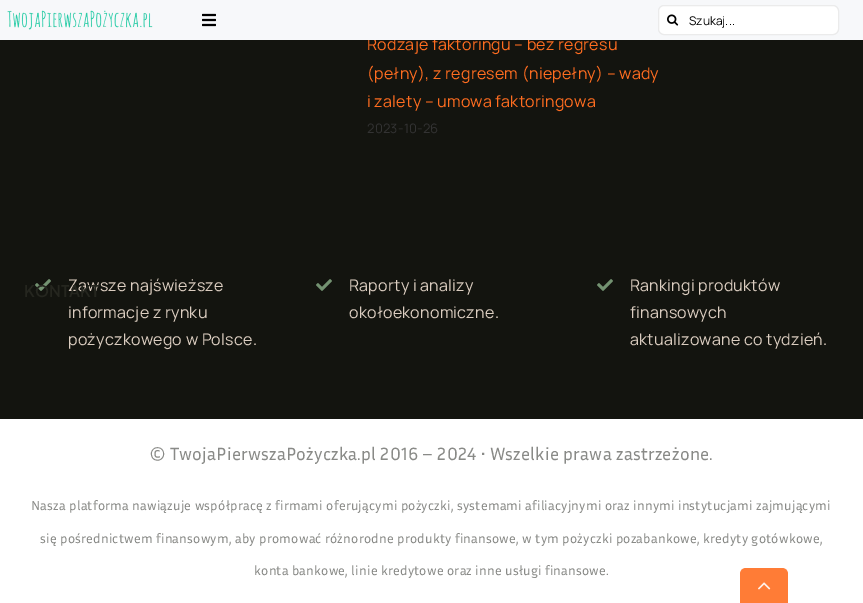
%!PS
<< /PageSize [863 603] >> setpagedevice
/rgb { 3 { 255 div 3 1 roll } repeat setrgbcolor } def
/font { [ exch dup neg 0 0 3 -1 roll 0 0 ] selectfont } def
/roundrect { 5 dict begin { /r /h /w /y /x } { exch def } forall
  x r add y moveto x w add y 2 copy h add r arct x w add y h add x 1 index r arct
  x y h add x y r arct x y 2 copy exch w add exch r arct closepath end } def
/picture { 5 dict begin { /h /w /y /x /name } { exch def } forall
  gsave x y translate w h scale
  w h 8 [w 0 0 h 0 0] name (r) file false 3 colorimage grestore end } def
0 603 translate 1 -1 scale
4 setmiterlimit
255 255 255 rgb
0 0 863 603 rectfill
19 20 15 rgb
0 40 863 379 rectfill
(img/4.rgb) 35 279 16 12 picture
(img/4.rgb) 316 279 16 12 picture
(img/4.rgb) 597 279 16 12 picture
255 124 54 rgb
746 568 moveto 782 568 lineto 785.5 568 788 570.5 788 574 curveto 788 603 lineto 740 603 lineto 740 574 lineto 740 570.5 742.5 568 746 568 curveto closepath fill
(img/5.rgb) 758 582 13 8 picture
/Manrope-Regular 16 font
255 109 32 rgb
367 50 moveto 0.25 0 (Rodzaje faktoringu – bez regresu) ashow
247 248 250 rgb
0 0 863 40 rectfill
(img/1.rgb) 7 10 146 20 picture
255 255 255 rgb
658.5 5.5 180 29 5.5 roundrect gsave fill grestore
235 235 235 rgb
stroke
(img/2.rgb) 667 14 12 12 picture
/Manrope-Regular 12 font
0 0 0 rgb
689 25 moveto (Szukaj...) show
(img/3.rgb) 202 13 14 14 picture
/Manrope-Regular 16 font
255 109 32 rgb
367 79 moveto 0.25 0 (\(pełny\), z regresem \(niepełny\) – wady) ashow
367 107 moveto 0.25 0 (i zalety – umowa faktoringowa) ashow
/Manrope-Regular 13 font
51 51 51 rgb
367 133 moveto 0.25 0 (2023-10-26) ashow
/Manrope-Regular 16 font
219 205 192 rgb
68 291 moveto 0.25 0 (Zawsze najświeższe) ashow
/PlusJakartaSans-SemiBold 16 font
37 38 31 rgb
24 297 moveto (KONTAKT) show
/Manrope-Regular 16 font
219 205 192 rgb
68 318 moveto 0.25 0 (informacje z rynku) ashow
68 345 moveto 0.25 0 (pożyczkowego w Polsce.) ashow
349 291 moveto 0.25 0 (Raporty i analizy) ashow
349 318 moveto 0.25 0 (okołoekonomiczne.) ashow
630 291 moveto 0.25 0 (Rankingi produktów) ashow
630 318 moveto 0.25 0 (finansowych) ashow
630 345 moveto 0.25 0 (aktualizowane co tydzień.) ashow
/InriaSans-Regular 18 font
137 138 135 rgb
150 460 moveto 0.27 0 (© TwojaPierwszaPożyczka.pl 2016 – 2024 • Wszelkie prawa zastrzeżone.) ashow
/InriaSans-Regular 13.33 font
31 510 moveto 0.27 0 (Nasza platforma nawiązuje współpracę z firmami oferującymi pożyczki, systemami afiliacyjnymi oraz innymi instytucjami zajmującymi) ashow
40 543 moveto 0.27 0 (się pośrednictwem finansowym, aby promować różnorodne produkty finansowe, w tym pożyczki pozabankowe, kredyty gotówkowe,) ashow
254 575 moveto 0.27 0 (konta bankowe, linie kredytowe oraz inne usługi finansowe.) ashow
showpage
